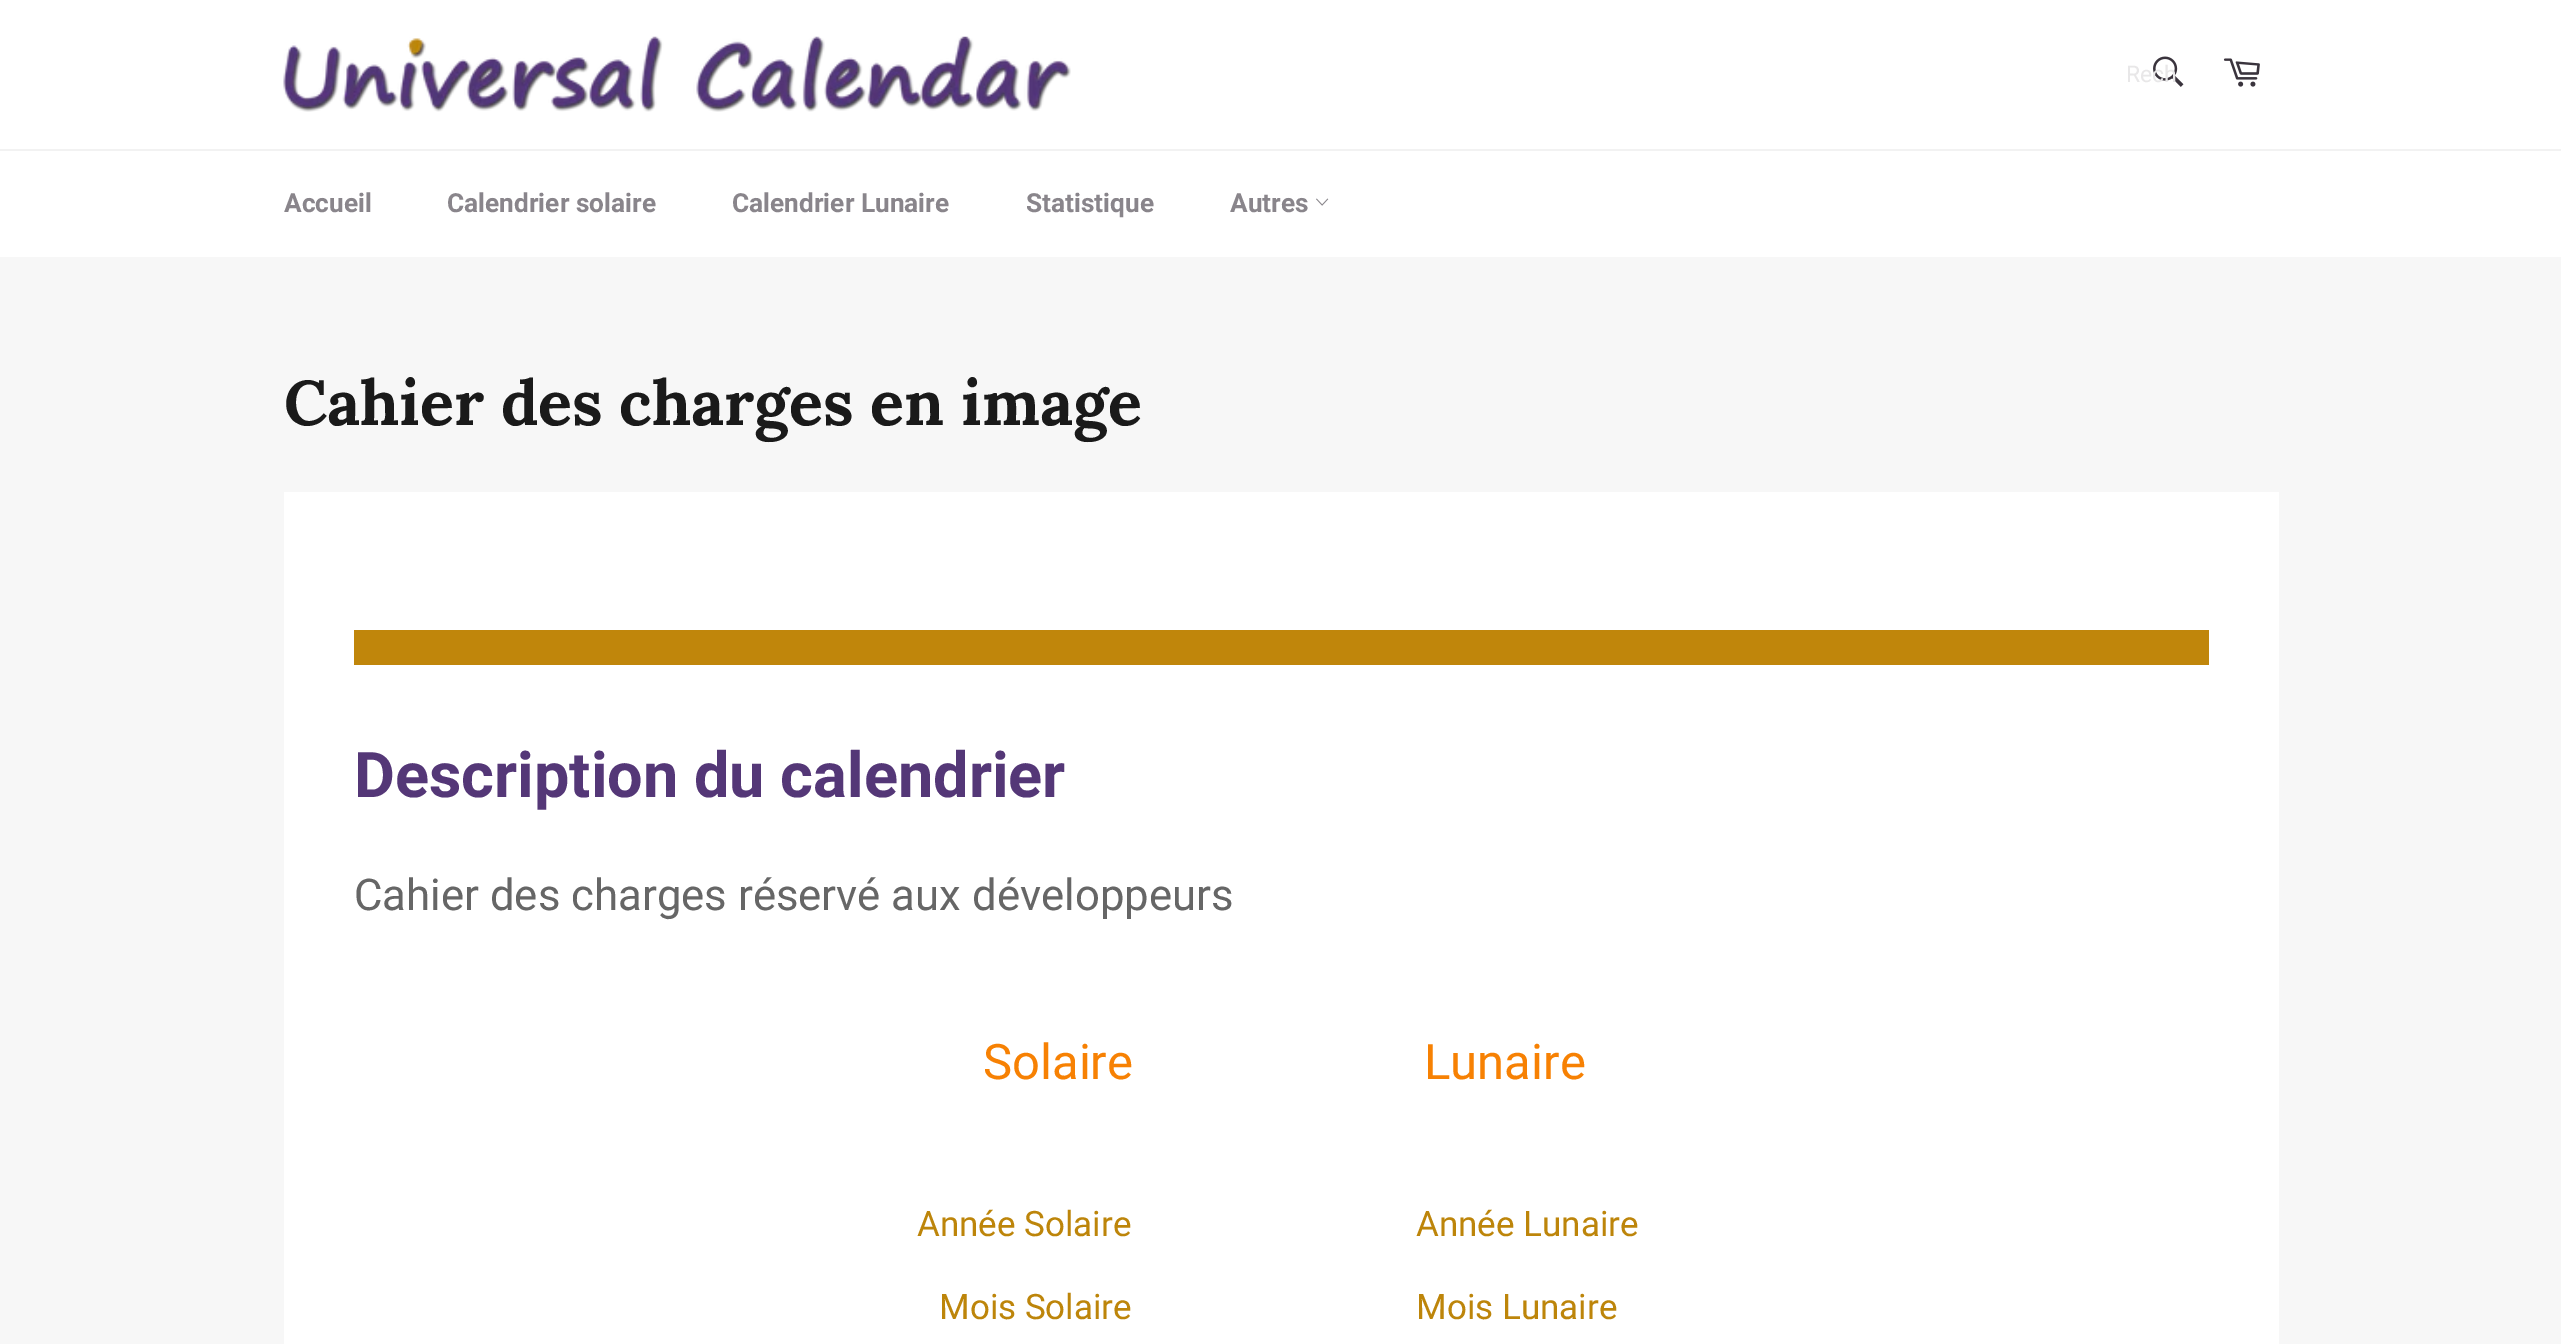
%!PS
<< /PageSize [2561 1344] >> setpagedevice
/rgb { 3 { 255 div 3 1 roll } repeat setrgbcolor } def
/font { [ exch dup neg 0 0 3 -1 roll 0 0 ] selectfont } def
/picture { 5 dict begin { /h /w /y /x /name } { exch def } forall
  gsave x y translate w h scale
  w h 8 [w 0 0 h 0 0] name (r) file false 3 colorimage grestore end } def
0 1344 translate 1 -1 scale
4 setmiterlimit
247 247 247 rgb
0 0 2561 1344 rectfill
255 255 255 rgb
0 0 2561 149 rectfill
(img/1.rgb) 283 36 788 76 picture
(img/2.rgb) 2153 56 31 31 picture
(img/3.rgb) 2223 58 37 29 picture
0 151 2561 106 rectfill
242 242 242 rgb
0 149 2561 2 rectfill
(img/4.rgb) 1316 198 13 8 picture
255 255 255 rgb
284 492 1995 852 rectfill
192 134 11 rgb
354 630 1855 35 rectfill
/Roboto-Regular 23 font
232 231 232 rgb
2126 82 moveto (Rech) show
/Roboto-Bold 26.25 font
137 133 139 rgb
[
  [(Accueil) 284 212]
  [(Calendrier solaire) 447 212]
  [(Calendrier Lunaire) 732 212]
  [(Statistique) 1026 212]
  [(Autres) 1230 212]
] { aload pop moveto show } forall
/Lora-Bold 63 font
26 26 26 rgb
284 425 moveto (Cahier des charges en image) show
/Roboto-Bold 63 font
84 55 119 rgb
354 797 moveto (Description du calendrier) show
/Roboto-Regular 43.75 font
102 102 102 rgb
354 910 moveto (Cahier des charges réservé aux développeurs) show
/Roboto-Regular 49 font
247 129 3 rgb
983 1079 moveto (Solaire) show
1424 1079 moveto (Lunaire) show
/Roboto-Regular 35 font
189 133 10 rgb
[
  [(Année Solaire) 917 1236]
  [(Année Lunaire) 1416 1236]
  [(Mois Solaire) 939 1319]
  [(Mois Lunaire) 1416 1319]
] { aload pop moveto show } forall
showpage
